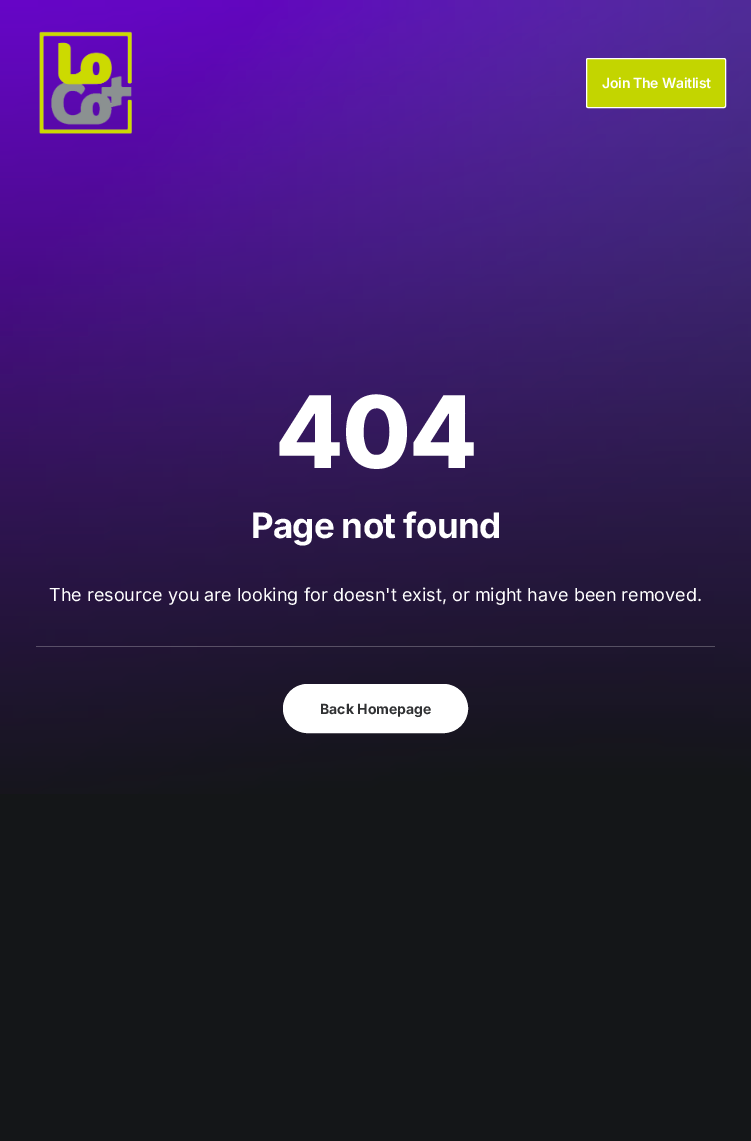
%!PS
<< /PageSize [751 1141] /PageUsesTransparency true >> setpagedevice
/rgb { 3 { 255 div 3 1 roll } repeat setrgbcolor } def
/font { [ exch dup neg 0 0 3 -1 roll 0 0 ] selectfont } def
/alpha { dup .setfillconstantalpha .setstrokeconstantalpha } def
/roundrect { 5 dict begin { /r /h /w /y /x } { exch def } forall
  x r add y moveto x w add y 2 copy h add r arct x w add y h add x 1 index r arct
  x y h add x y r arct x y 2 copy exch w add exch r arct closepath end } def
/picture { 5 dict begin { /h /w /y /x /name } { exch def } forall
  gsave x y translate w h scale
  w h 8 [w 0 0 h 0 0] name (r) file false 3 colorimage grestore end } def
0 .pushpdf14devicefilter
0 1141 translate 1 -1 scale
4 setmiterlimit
20 22 24 rgb
0 0 751 1141 rectfill
(img/2.rgb) 0 0 751 794 picture
(img/1.rgb) 39 31 93 103 picture
195 213 0 rgb
586.5 58.5 139 49 1.5 roundrect gsave fill grestore
255 255 255 rgb
stroke
0.25 alpha
36 646 679 1 rectfill
1 alpha
283.5 684.5 184 48 24 roundrect gsave fill grestore
stroke
/Inter-SemiBold 14 font
602 88 moveto -0.25 0 (Join The Waitlist) ashow
/Inter-ExtraBold 100 font
275 468 moveto -2 0 (404) ashow
/Inter-Bold 35 font
251 538 moveto -0.75 0 (Page not found) ashow
/Inter-Regular 18 font
49 601 moveto (The resource you are looking for doesn't exist, or might have been removed.) show
/Inter-Bold 14 font
48 49 51 rgb
320 714 moveto (Back Homepage) show
.poppdf14devicefilter showpage
